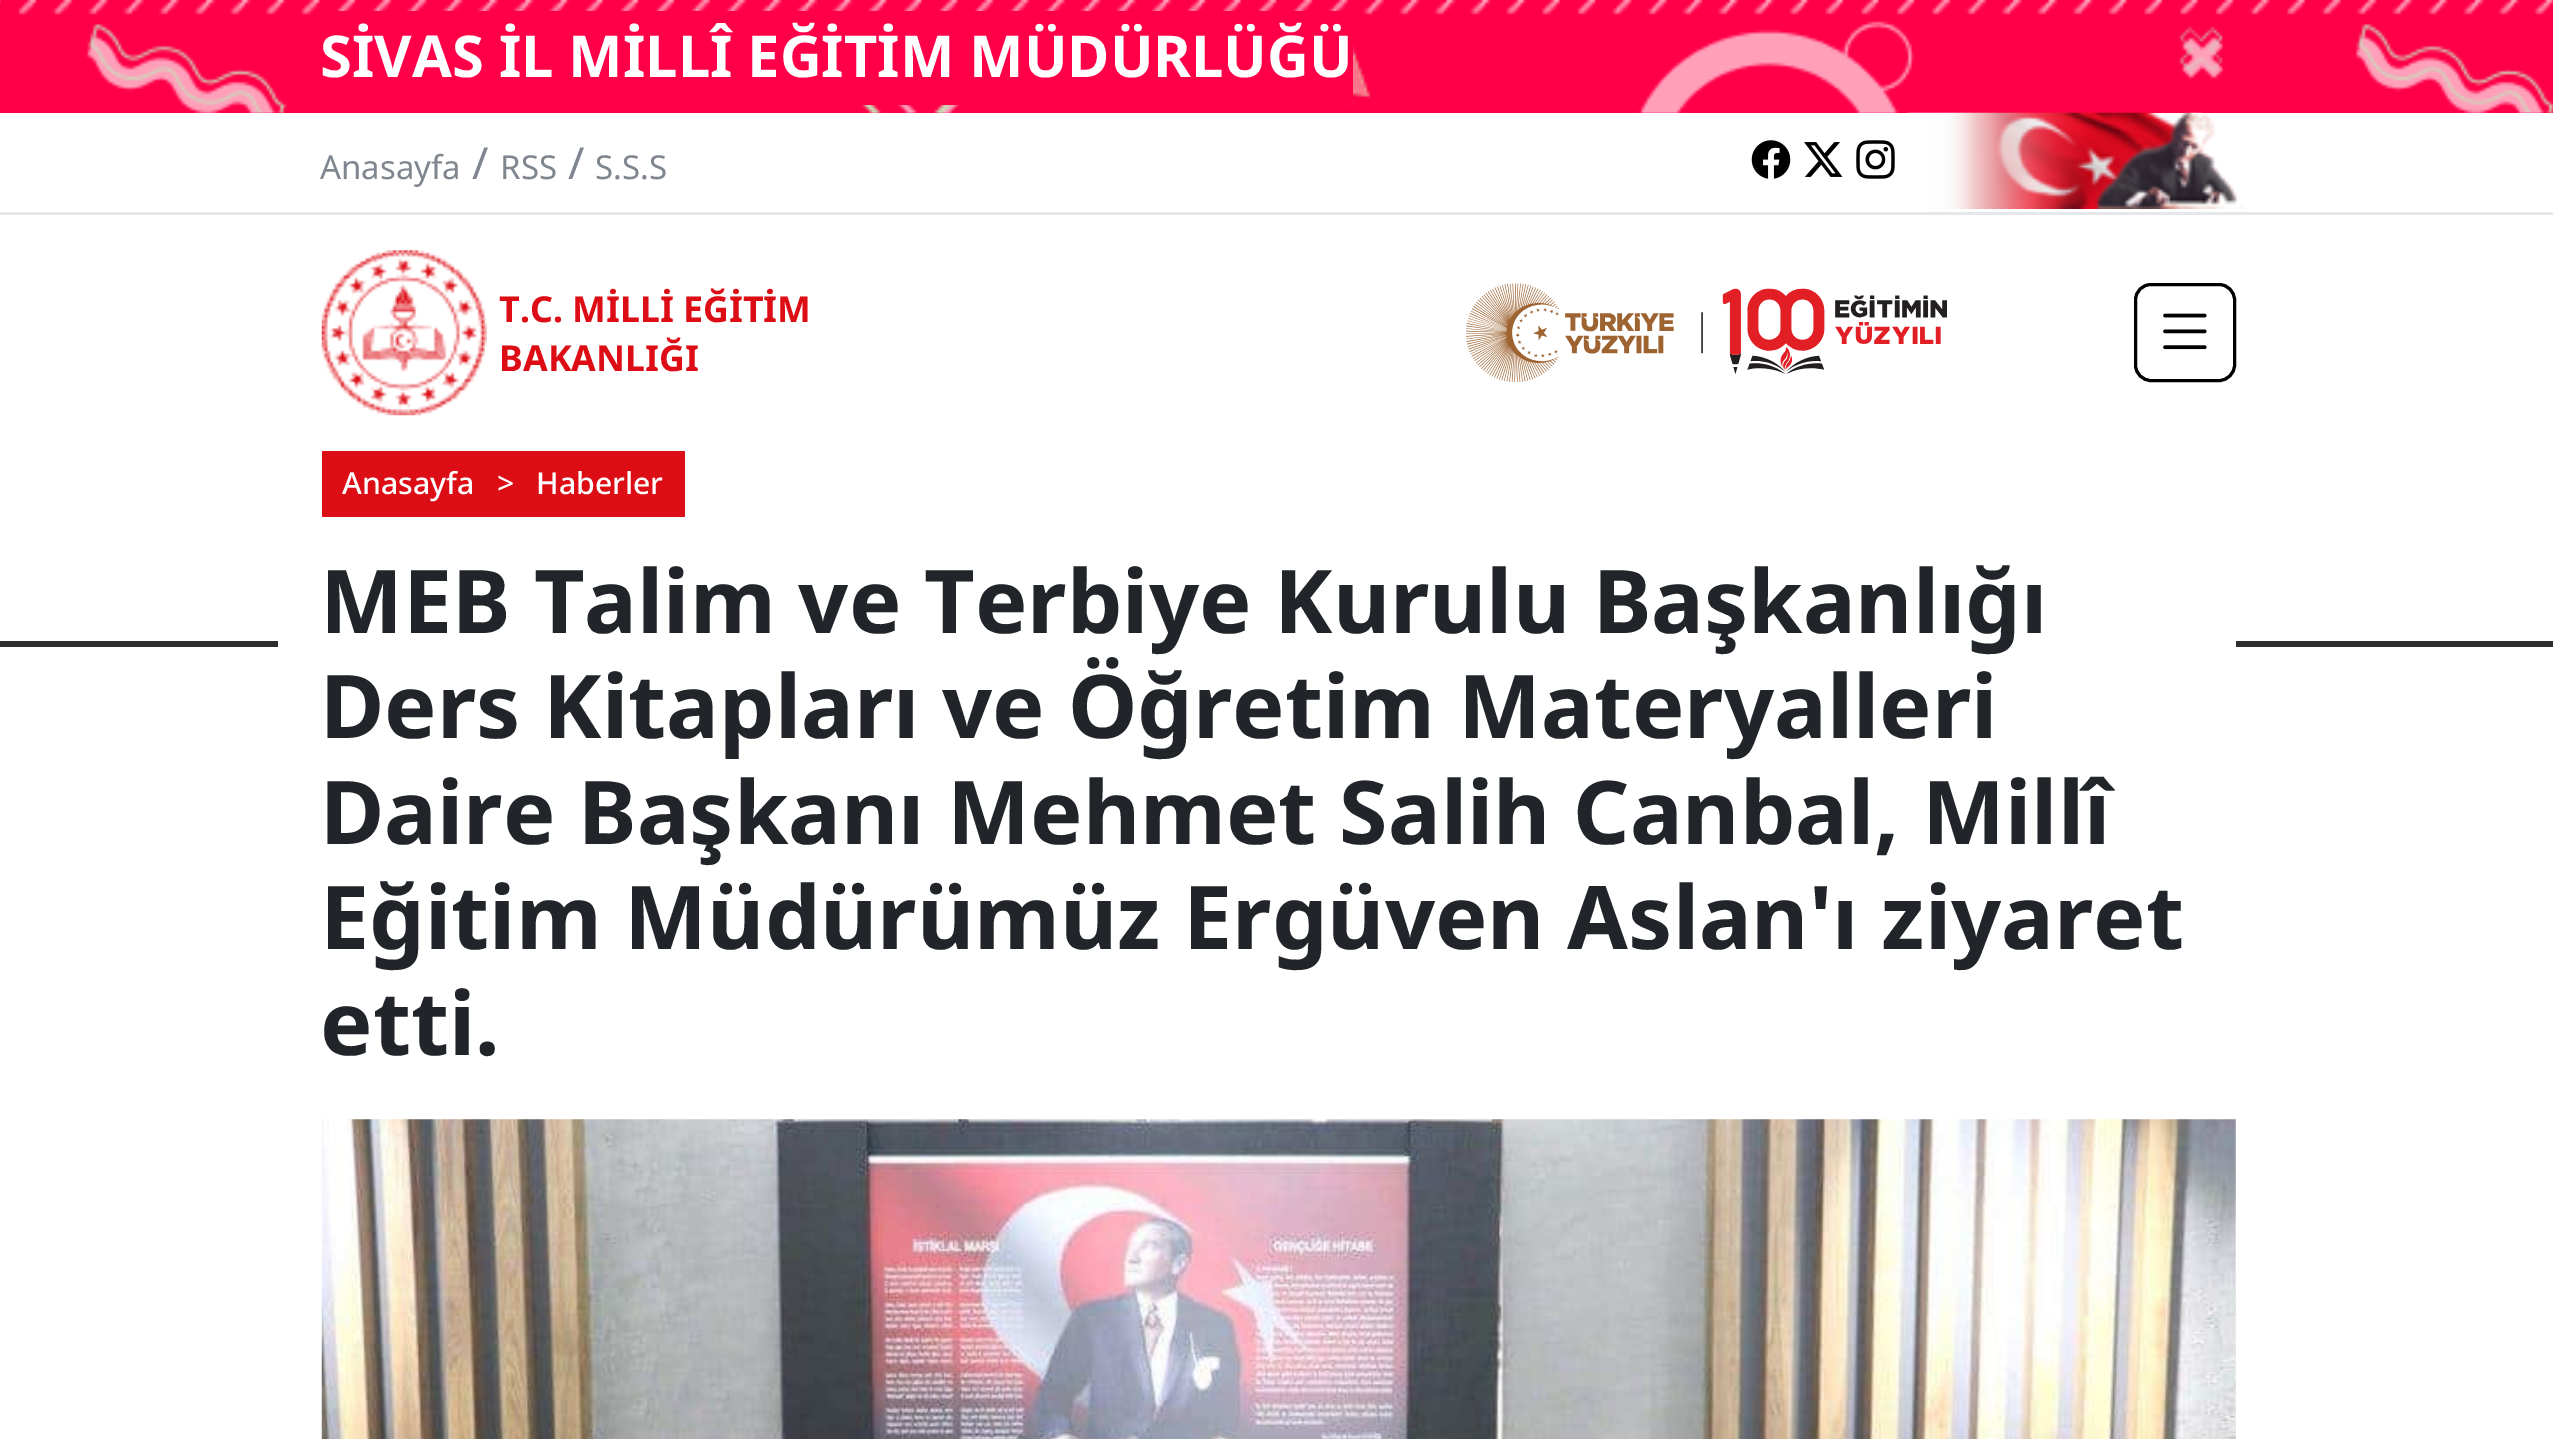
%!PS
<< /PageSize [2553 1439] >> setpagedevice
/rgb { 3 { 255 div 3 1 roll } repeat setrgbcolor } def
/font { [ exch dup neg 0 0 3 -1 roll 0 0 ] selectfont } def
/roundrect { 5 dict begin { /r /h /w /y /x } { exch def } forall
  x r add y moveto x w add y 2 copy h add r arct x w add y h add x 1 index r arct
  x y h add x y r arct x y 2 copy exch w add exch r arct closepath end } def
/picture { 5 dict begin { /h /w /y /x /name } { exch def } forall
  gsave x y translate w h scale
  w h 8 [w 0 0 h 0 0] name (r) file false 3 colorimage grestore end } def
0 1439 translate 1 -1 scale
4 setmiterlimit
255 255 255 rgb
0 0 2553 1439 rectfill
255 0 72 rgb
0 0 2553 113 rectfill
(img/1.rgb) 0 0 2553 113 picture
337 11 1016 94 rectfill
229 231 235 rgb
0 212 2553 3 rectfill
(img/2.rgb) 1751 140 40 39 picture
(img/3.rgb) 1804 142 39 35 picture
(img/4.rgb) 1856 140 39 39 picture
(img/5.rgb) 1908 112 336 97 picture
(img/6.rgb) 321 250 166 166 picture
(img/7.rgb) 1466 283 481 99 picture
0 0 0 rgb
3 setlinewidth
2135.5 284.5 99 96 15.5 roundrect stroke
(img/8.rgb) 2163 313 44 37 picture
[
  [322 451 363 66 220 13 21]
  [0 641 2553 6 46 46 48]
  [278 641 1958 6 255 255 255]
] { aload pop rgb rectfill } forall
(img/9.rgb) 321 1119 1915 320 picture
/NotoSans-Bold 57.75 font
320 77 moveto (SİVAS İL MİLLÎ EĞİTİM MÜDÜRLÜĞÜ) show
/NotoSans-Regular 33 font
127 134 144 rgb
320 179 moveto (Anasayfa) show
/NotoSans-Regular 44 font
472 179 moveto (/) show
/NotoSans-Regular 33 font
500 179 moveto (RSS) show
/NotoSans-Regular 44 font
568 179 moveto (/) show
/NotoSans-Regular 33 font
595 179 moveto (S.S.S) show
/NotoSans-Bold 35.75 font
220 13 21 rgb
499 322 moveto (T.C. MİLLİ EĞİTİM) show
499 371 moveto (BAKANLIĞI) show
/NotoSans-Medium 30.25 font
255 255 255 rgb
[
  [(Anasayfa) 342 494]
  [(>) 497 494]
  [(Haberler) 536 494]
] { aload pop moveto show } forall
/NotoSans-Bold 88 font
33 37 41 rgb
[
  [(MEB Talim ve Terbiye Kurulu Başkanlığı) 320 633]
  [(Ders Kitapları ve Öğretim Materyalleri) 320 738]
  [(Daire Başkanı Mehmet Salih Canbal, Millî) 320 844]
  [(Eğitim Müdürümüz Ergüven Aslan'ı ziyaret) 320 949]
  [(etti.) 320 1055]
] { aload pop moveto show } forall
showpage
